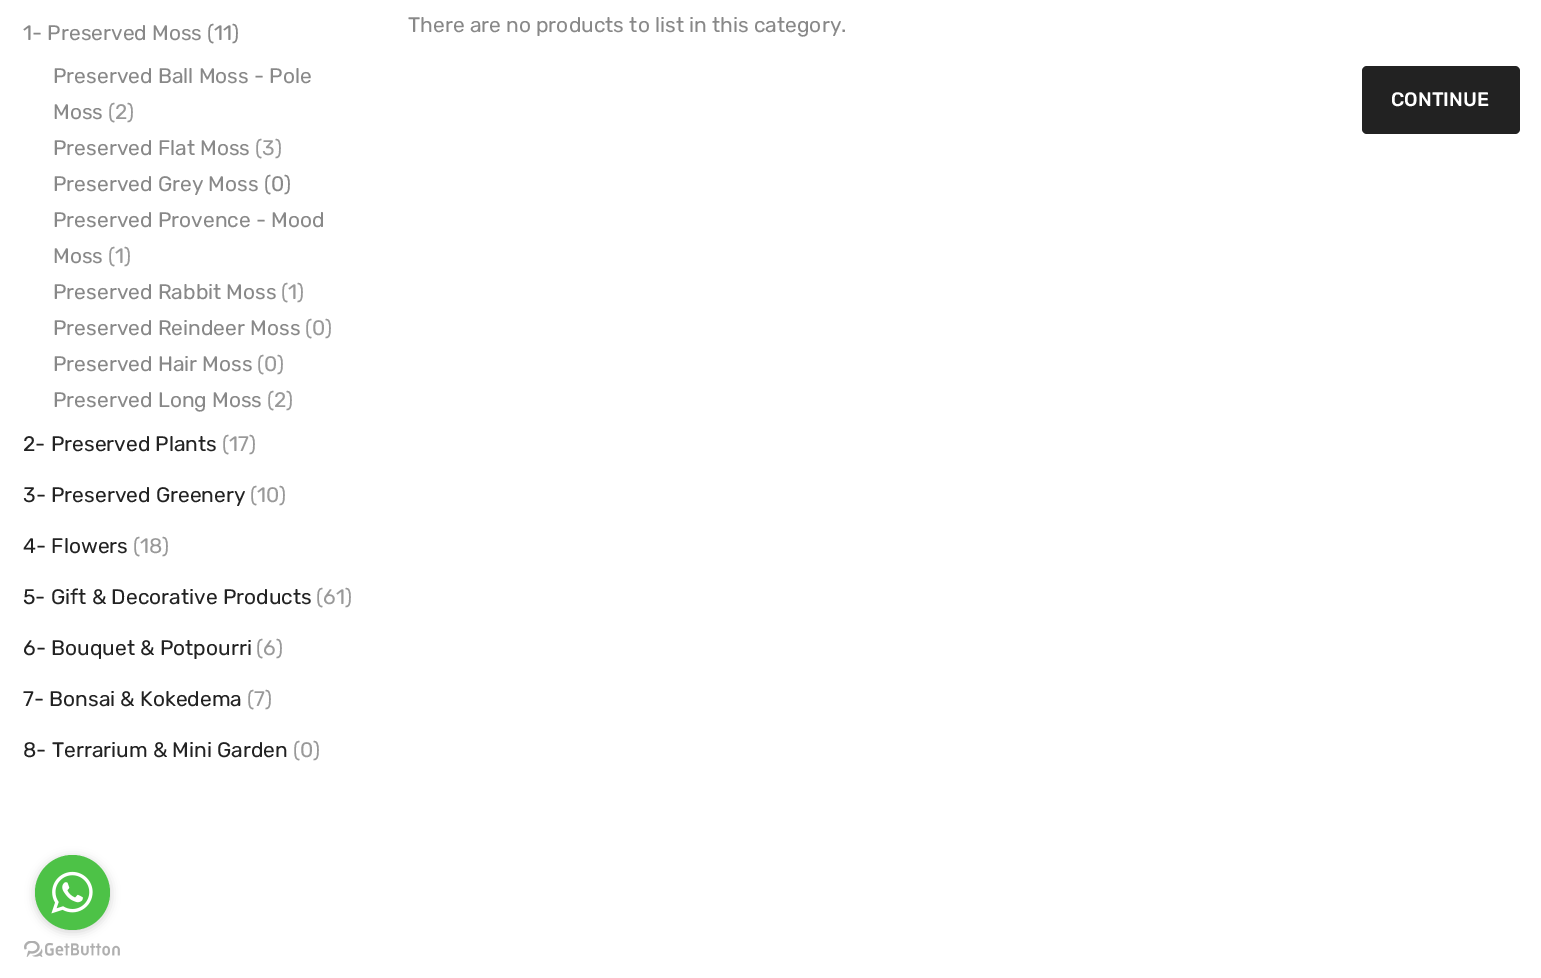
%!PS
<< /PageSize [1541 978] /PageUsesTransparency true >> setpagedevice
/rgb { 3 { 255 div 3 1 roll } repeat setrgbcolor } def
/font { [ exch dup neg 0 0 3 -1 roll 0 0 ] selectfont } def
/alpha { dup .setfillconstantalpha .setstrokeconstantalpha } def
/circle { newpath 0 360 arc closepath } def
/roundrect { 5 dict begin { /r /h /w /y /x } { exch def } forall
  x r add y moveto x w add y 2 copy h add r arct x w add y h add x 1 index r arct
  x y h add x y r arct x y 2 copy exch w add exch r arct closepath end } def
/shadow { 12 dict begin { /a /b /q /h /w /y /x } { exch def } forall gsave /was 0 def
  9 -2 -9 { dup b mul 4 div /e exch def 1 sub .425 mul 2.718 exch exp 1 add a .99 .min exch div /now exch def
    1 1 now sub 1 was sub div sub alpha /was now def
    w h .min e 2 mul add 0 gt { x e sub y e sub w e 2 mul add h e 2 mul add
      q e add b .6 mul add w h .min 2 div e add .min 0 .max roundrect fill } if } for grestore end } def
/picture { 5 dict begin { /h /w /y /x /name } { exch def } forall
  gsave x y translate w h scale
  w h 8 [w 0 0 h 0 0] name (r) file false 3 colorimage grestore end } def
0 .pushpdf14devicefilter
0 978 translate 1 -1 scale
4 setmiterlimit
255 255 255 rgb
0 0 1541 978 rectfill
34 34 34 rgb
1362 66 158 68 5 roundrect fill
(img/2.rgb) 24 941 96 16 picture
136 136 136 rgb
35 857 75 75 37.5 5 0.4 shadow
77 194 71 rgb
72.5 892.5 37.5 circle fill
(img/1.rgb) 51 871 42 43 picture
/Rubik-Regular 21 font
136 136 136 rgb
[
  [(1- Preserved Moss \(11\)) 23 40]
  [(Preserved Ball Moss - Pole) 53 83]
  [(Moss) 53 119]
] { aload pop moveto show } forall
153 153 153 rgb
108 119 moveto (\(2\)) show
136 136 136 rgb
53 155 moveto (Preserved Flat Moss) show
153 153 153 rgb
255 155 moveto (\(3\)) show
136 136 136 rgb
[
  [(Preserved Grey Moss \(0\)) 53 191]
  [(Preserved Provence - Mood) 53 227]
  [(Moss) 53 263]
] { aload pop moveto show } forall
153 153 153 rgb
108 263 moveto (\(1\)) show
136 136 136 rgb
53 299 moveto (Preserved Rabbit Moss) show
153 153 153 rgb
281 299 moveto (\(1\)) show
136 136 136 rgb
53 335 moveto (Preserved Reindeer Moss) show
153 153 153 rgb
305 335 moveto (\(0\)) show
136 136 136 rgb
53 371 moveto (Preserved Hair Moss) show
153 153 153 rgb
257 371 moveto (\(0\)) show
136 136 136 rgb
53 407 moveto (Preserved Long Moss) show
153 153 153 rgb
267 407 moveto (\(2\)) show
34 34 34 rgb
23 451 moveto (2- Preserved Plants) show
153 153 153 rgb
222 451 moveto (\(17\)) show
34 34 34 rgb
23 502 moveto (3- Preserved Greenery) show
153 153 153 rgb
250 502 moveto (\(10\)) show
34 34 34 rgb
23 553 moveto (4- Flowers) show
153 153 153 rgb
133 553 moveto (\(18\)) show
34 34 34 rgb
23 604 moveto (5- Gift & Decorative Products) show
153 153 153 rgb
316 604 moveto (\(61\)) show
34 34 34 rgb
23 655 moveto (6- Bouquet & Potpourri) show
153 153 153 rgb
256 655 moveto (\(6\)) show
34 34 34 rgb
23 706 moveto (7- Bonsai & Kokedema) show
153 153 153 rgb
247 706 moveto (\(7\)) show
34 34 34 rgb
23 757 moveto (8- Terrarium & Mini Garden) show
153 153 153 rgb
293 757 moveto (\(0\)) show
136 136 136 rgb
408 32 moveto (There are no products to list in this category.) show
/Rubik-Medium 19.5 font
255 255 255 rgb
1391 106 moveto (CONTINUE) show
.poppdf14devicefilter showpage
